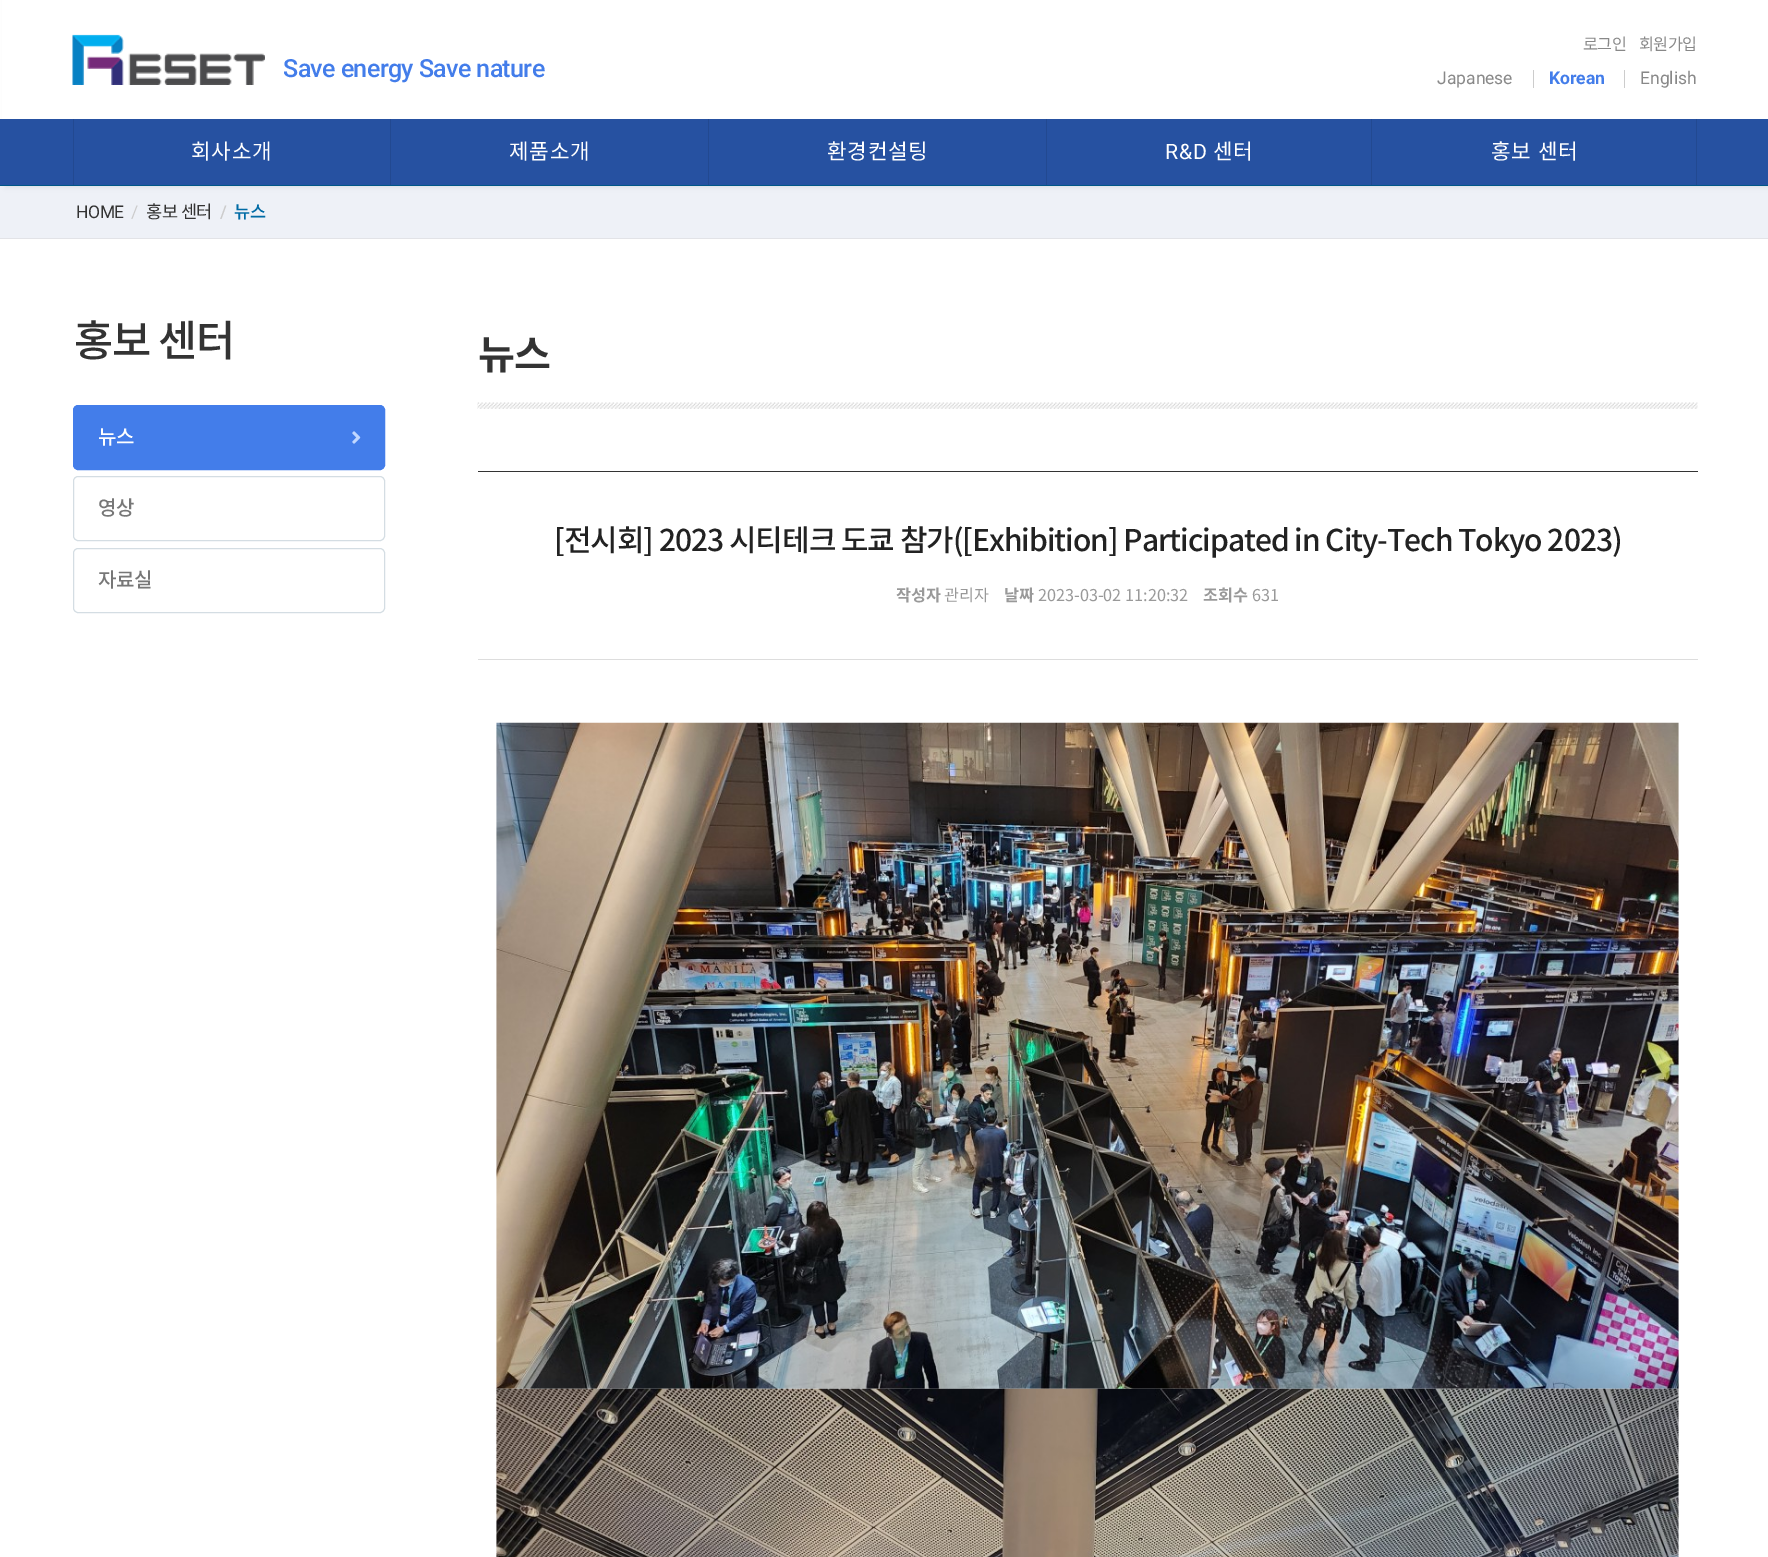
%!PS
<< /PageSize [1768 1557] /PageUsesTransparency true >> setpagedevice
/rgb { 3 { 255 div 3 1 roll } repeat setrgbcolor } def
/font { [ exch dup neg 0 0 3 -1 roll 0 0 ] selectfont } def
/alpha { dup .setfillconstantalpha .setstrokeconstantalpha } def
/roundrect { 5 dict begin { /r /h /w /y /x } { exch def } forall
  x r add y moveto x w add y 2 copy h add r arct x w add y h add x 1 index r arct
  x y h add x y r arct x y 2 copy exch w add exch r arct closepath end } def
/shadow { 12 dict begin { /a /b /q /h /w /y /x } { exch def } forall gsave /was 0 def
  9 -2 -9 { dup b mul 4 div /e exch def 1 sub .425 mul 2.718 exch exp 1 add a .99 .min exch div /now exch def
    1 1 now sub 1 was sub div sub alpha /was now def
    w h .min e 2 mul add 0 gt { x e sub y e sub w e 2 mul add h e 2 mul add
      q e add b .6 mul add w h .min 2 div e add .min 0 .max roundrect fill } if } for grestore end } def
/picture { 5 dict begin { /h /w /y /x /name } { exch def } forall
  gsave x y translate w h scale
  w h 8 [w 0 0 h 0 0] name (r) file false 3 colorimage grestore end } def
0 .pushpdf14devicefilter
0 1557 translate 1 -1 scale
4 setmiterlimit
255 255 255 rgb
0 0 1768 1557 rectfill
238 241 247 rgb
0 186 1768 52 rectfill
0 0 0 rgb
6 0 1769 186 0 3 0.1 shadow
[
  [0 119 1768 66 38 81 161]
  [0 185 1768 1 0 87 137]
  [2 0 1766 119 255 255 255]
] { aload pop rgb rectfill } forall
(img/1.rgb) 72 34 193 51 picture
[
  [1533 70 1 18 204 204 204]
  [1624 70 1 18 204 204 204]
  [1696 119 1 66 34 73 145]
  [73 119 1 66 34 73 145]
  [390 119 1 66 34 73 145]
  [708 119 1 66 34 73 145]
  [1046 119 1 66 34 73 145]
  [1371 119 1 66 34 73 145]
  [0 238 1768 1 226 227 231]
] { aload pop rgb rectfill } forall
67 125 234 rgb
73.5 405.5 311 64 4.5 roundrect gsave fill grestore
stroke
(img/2.rgb) 352 431 9 13 picture
212 221 227 rgb
73.5 476.5 311 64 4.5 roundrect stroke
73.5 548.5 311 64 4.5 roundrect stroke
(img/3.rgb) 477 402 1221 7 picture
51 51 51 rgb
478 471 1220 1 rectfill
221 221 221 rgb
478 659 1220 1 rectfill
(img/4.rgb) 496 722 1183 667 picture
(img/5.rgb) 496 1388 1183 169 picture
/NotoSansKR-Regular 16.25 font
136 136 136 rgb
1583 50 moveto -0.5 0 (로그인) ashow
1639 50 moveto -0.5 0 (회원가입) ashow
/Roboto-Medium 25 font
67 125 234 rgb
283 77 moveto -0.6 0 (Save energy Save nature) ashow
/Roboto-Regular 17.5 font
136 136 136 rgb
1437 84 moveto (Japanese) show
/Roboto-Bold 17.5 font
67 125 234 rgb
1549 84 moveto (Korean) show
/Roboto-Regular 17.5 font
136 136 136 rgb
1640 84 moveto (English) show
/NotoSansKR-Regular 21.25 font
255 255 255 rgb
191 159 moveto 0.75 0 (회사소개) ashow
509 159 moveto 0.75 0 (제품소개) ashow
827 159 moveto 0.75 0 (환경컨설팅) ashow
/Roboto-Regular 21.25 font
1165 159 moveto 0.75 0 (R&D) ashow
/NotoSansKR-Regular 21.25 font
1213 159 moveto 0.75 0 (센터) ashow
1491 159 moveto 1 0 32 0.75 0 (홍보 센터) awidthshow
/Roboto-Regular 17.5 font
51 51 51 rgb
76 218 moveto -0.5 0 (HOME) ashow
204 204 204 rgb
131 218 moveto -0.5 0 (/) ashow
/NotoSansKR-Regular 17.5 font
51 51 51 rgb
146 218 moveto -0.5 0 (홍보 센터) ashow
/Roboto-Medium 17.5 font
204 204 204 rgb
220 218 moveto -0.5 0 (/) ashow
/NotoSansKR-Medium 17.5 font
0 107 165 rgb
234 218 moveto -0.5 0 (뉴스) ashow
/NotoSansKR-Medium 42.5 font
51 51 51 rgb
74 356 moveto 1 0 32 -1.5 0 (홍보 센터) awidthshow
/NotoSansKR-Medium 20 font
255 255 255 rgb
98 444 moveto -0.5 0 (뉴스) ashow
119 119 119 rgb
98 515 moveto -0.5 0 (영상) ashow
98 587 moveto -0.5 0 (자료실) ashow
/NotoSansKR-Bold 40 font
51 51 51 rgb
478 369 moveto -1 0 (뉴스) ashow
/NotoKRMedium-Medium 30 font
34 34 34 rgb
554 551 moveto -1.02 0 ([전시회] 2023 시티테크 도쿄 참가\([Exhibition] Participated in City-Tech Tokyo 2023\)) ashow
/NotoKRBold-Bold 16.25 font
153 153 153 rgb
896 601 moveto (작성자) show
/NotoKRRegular-Regular 16.25 font
944 601 moveto (관리자) show
/NotoKRBold-Bold 16.25 font
1004 601 moveto (날짜) show
/NotoKRRegular-Regular 16.25 font
1038 601 moveto (2023-03-02 11:20:32) show
/NotoKRBold-Bold 16.25 font
1203 601 moveto (조회수) show
/NotoKRRegular-Regular 16.25 font
1252 601 moveto (631) show
.poppdf14devicefilter showpage
